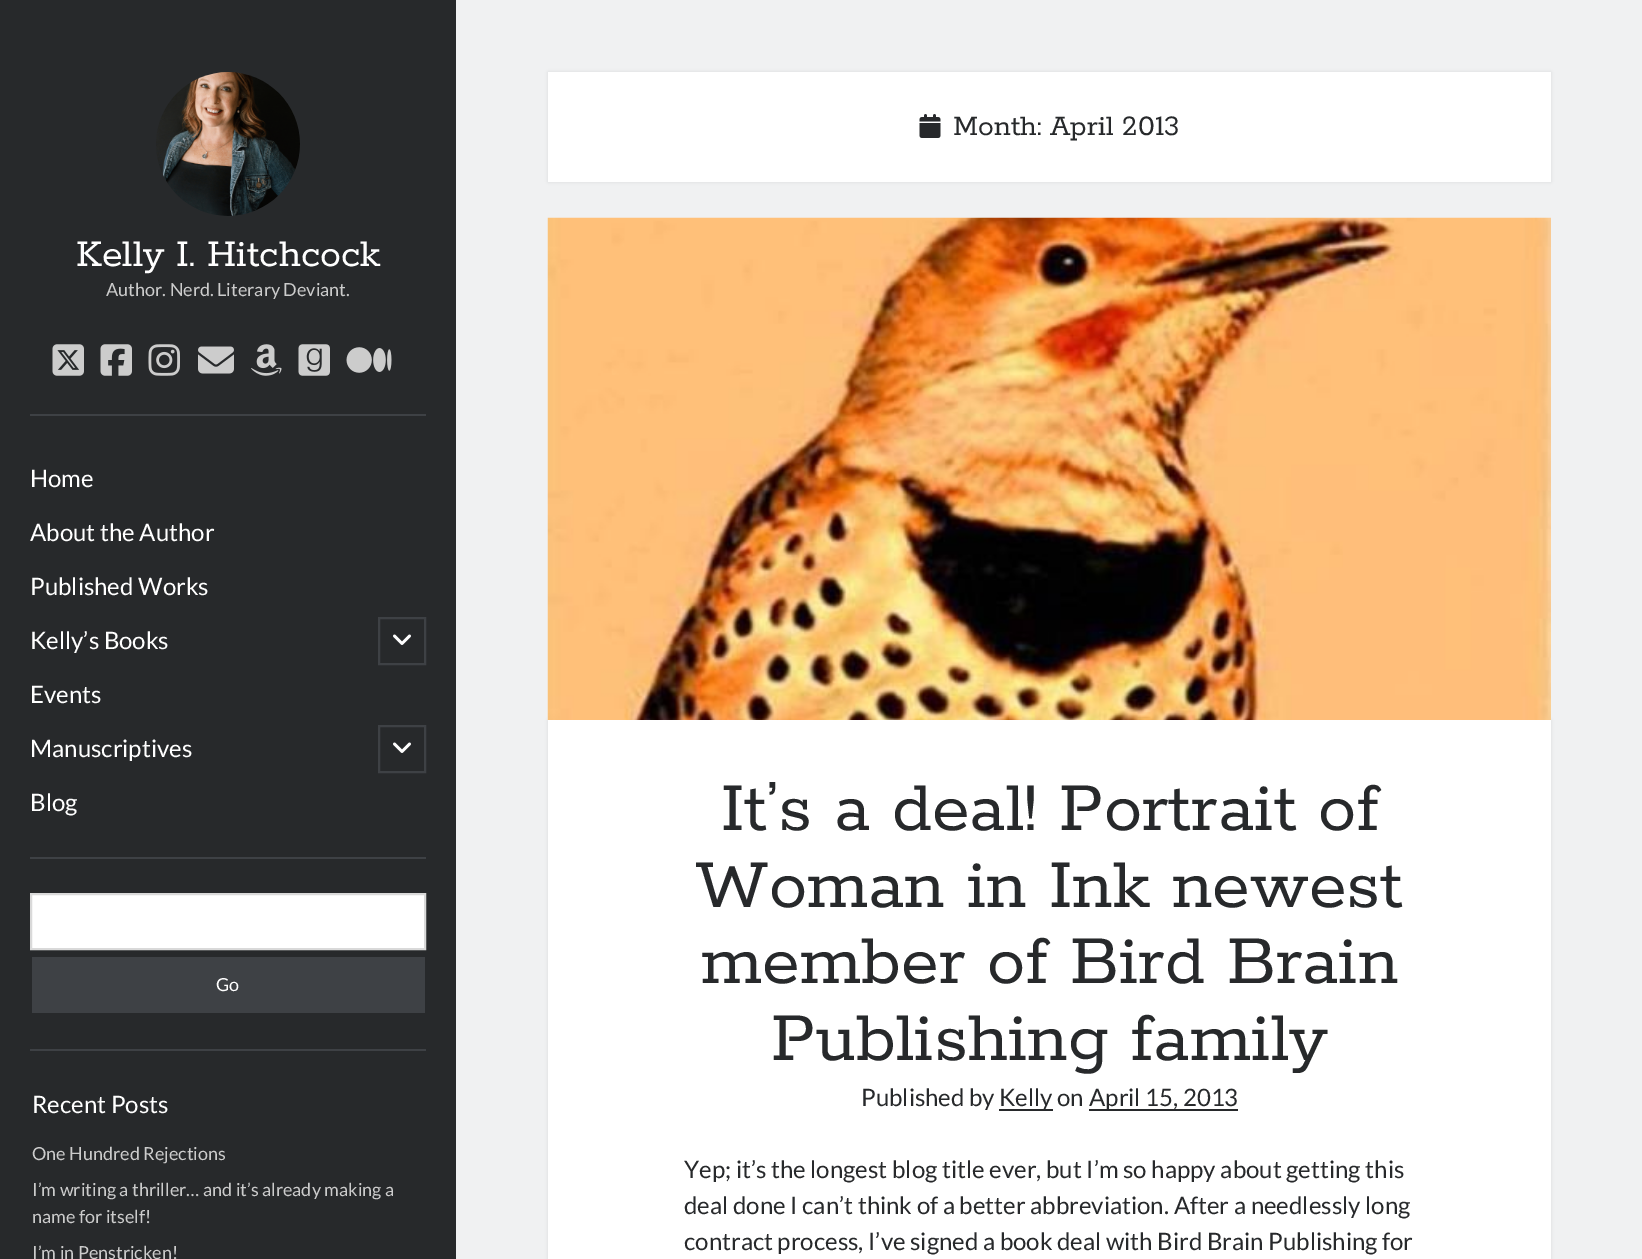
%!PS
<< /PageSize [1642 1259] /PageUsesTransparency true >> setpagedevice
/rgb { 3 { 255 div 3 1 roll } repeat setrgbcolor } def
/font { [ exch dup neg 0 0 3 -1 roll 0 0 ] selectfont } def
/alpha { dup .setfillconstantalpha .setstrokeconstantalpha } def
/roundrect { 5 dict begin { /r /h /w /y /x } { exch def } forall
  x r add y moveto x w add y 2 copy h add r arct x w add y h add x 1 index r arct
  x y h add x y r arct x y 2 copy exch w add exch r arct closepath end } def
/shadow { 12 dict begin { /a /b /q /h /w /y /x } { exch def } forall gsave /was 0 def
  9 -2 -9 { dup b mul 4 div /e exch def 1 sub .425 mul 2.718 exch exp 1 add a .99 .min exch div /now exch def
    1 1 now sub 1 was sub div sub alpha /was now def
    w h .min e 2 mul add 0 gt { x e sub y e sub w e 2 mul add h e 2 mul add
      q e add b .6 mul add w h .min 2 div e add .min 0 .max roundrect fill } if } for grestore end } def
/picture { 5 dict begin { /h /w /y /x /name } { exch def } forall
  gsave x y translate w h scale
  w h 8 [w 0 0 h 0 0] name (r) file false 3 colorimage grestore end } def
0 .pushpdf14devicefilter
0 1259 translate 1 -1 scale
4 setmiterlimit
39 41 43 rgb
0 0 1642 1259 rectfill
(img/1.rgb) 156 72 144 144 picture
(img/2.rgb) 52 344 32 32 picture
(img/3.rgb) 100 344 32 32 picture
(img/4.rgb) 148 344 32 32 picture
(img/5.rgb) 198 346 36 28 picture
(img/6.rgb) 251 344 31 32 picture
(img/7.rgb) 298 344 32 32 picture
(img/8.rgb) 346 347 46 26 picture
62 65 69 rgb
30 414 396 2 rectfill
2 setlinewidth
379 618 46 46 rectstroke
(img/9.rgb) 393 634 18 11 picture
379 726 46 46 rectstroke
(img/9.rgb) 393 742 18 11 picture
30 857 396 2 rectfill
255 255 255 rgb
31 894 moveto 425 894 lineto 425 949 lineto 31 949 lineto closepath gsave fill grestore
217 217 217 rgb
stroke
[
  [32 957 393 56 62 65 69]
  [30 1049 396 2 62 65 69]
  [456 0 1186 1259 240 241 242]
] { aload pop rgb rectfill } forall
39 43 47 rgb
548 72 1003 110 0 1.5 0.1 shadow
255 255 255 rgb
548 72 1003 110 rectfill
(img/10.rgb) 919 114 22 24 picture
39 43 47 rgb
548 720 1003 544 0 1.5 0.1 shadow
(img/11.rgb) 547 217 1004 503 picture
[
  [548 720 1003 539 255 255 255]
  [999 1109 54 2 39 41 43]
  [1089 1109 149 2 39 41 43]
] { aload pop rgb rectfill } forall
/Rokkitt-Regular 42 font
255 255 255 rgb
76 266 moveto (Kelly I. Hitchcock) show
/Lato-Regular 18 font
204 204 204 rgb
106 296 moveto (Author. Nerd. Literary Deviant.) show
/Lato-Regular 24 font
255 255 255 rgb
[
  [(Home) 30 487]
  [(About the Author) 30 541]
  [(Published Works) 30 595]
  [(Kelly’s Books) 30 649]
  [(Events) 30 703]
  [(Manuscriptives) 30 757]
  [(Blog) 30 811]
] { aload pop moveto show } forall
/Lato-Regular 18 font
216 991 moveto (Go) show
/Lato-Regular 24 font
32 1113 moveto (Recent Posts) show
/Lato-Regular 18 font
204 204 204 rgb
[
  [(One Hundred Rejections) 32 1160]
  [(I’m writing a thriller… and it’s already making a) 32 1196]
  [(name for itself!) 32 1223]
  [(I’m in Penstricken!) 32 1259]
] { aload pop moveto show } forall
/Rokkitt-Regular 31.5 font
39 41 43 rgb
953 135 moveto (Month: April 2013) show
/Rokkitt-Regular 76.5 font
[
  [(It’s a deal! Portrait of) 721 830]
  [(Woman in Ink newest) 695 907]
  [(member of Bird Brain) 701 983]
  [(Publishing family) 771 1060]
] { aload pop moveto show } forall
/Lato-Regular 24 font
[
  [(Published by) 861 1106]
  [(Kelly on) 999 1106]
  [(April 15, 2013) 1089 1106]
  [(Yep; it’s the longest blog title ever, but I’m so happy about getting this) 684 1178]
  [(deal done I can’t think of a better abbreviation. After a needlessly long) 684 1214]
  [(contract process, I’ve signed a book deal with Bird Brain Publishing for) 684 1250]
] { aload pop moveto show } forall
.poppdf14devicefilter showpage
